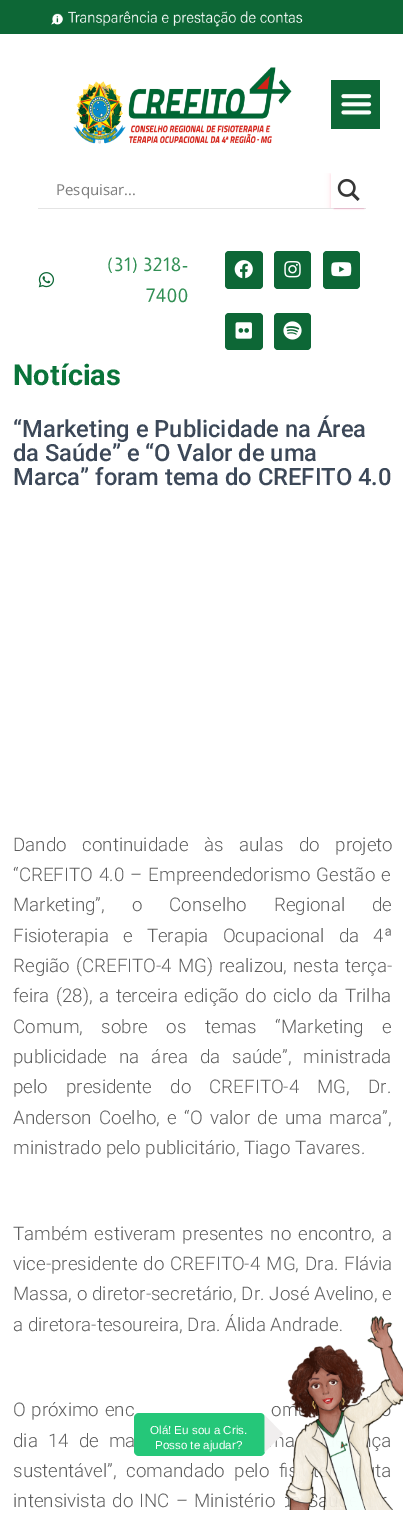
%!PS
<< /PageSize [403 1521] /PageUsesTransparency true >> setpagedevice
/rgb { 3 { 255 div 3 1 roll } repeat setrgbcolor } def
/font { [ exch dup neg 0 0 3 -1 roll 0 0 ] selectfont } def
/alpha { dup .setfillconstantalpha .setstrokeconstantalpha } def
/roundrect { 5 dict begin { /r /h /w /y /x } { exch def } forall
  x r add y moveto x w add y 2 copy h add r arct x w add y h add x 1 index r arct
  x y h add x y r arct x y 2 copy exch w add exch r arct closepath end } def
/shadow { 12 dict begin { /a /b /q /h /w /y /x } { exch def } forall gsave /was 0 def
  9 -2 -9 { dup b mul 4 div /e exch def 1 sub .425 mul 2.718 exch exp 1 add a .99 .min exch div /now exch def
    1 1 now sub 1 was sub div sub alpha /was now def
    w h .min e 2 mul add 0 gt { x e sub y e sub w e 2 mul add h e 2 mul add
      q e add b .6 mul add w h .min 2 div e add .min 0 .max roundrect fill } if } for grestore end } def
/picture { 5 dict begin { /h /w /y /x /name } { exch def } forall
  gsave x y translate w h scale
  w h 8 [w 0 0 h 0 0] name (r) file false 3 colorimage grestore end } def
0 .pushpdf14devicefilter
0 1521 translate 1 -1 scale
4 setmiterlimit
255 255 255 rgb
0 0 403 1521 rectfill
13 103 54 rgb
0 0 403 34 rectfill
(img/1.rgb) 51 11 252 16 picture
(img/2.rgb) 73 67 219 77 picture
331 80 49 49 rectfill
(img/3.rgb) 341 94 31 21 picture
228 228 228 rgb
38 208 328 1 rectfill
gsave
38 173 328 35 rectclip
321 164 moveto 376 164 lineto 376 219 lineto 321 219 lineto closepath 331 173 moveto 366 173 lineto 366 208 lineto 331 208 lineto closepath eoclip newpath
233 30 99 rgb
331 174 35 35 0 3 0.12 shadow
grestore
gsave
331 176 moveto 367 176 lineto 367 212 lineto 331 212 lineto closepath 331 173 moveto 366 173 lineto 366 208 lineto 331 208 lineto closepath eoclip newpath
233 30 99 rgb
334 179 30 30 0 0.5 0.2 shadow
grestore
gsave
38 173 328 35 rectclip
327 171 moveto 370 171 lineto 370 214 lineto 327 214 lineto closepath 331 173 moveto 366 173 lineto 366 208 lineto 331 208 lineto closepath eoclip newpath
233 30 99 rgb
331 175 35 35 0 1 0.14 shadow
grestore
(img/4.rgb) 337 178 23 23 picture
(img/5.rgb) 38 272 17 16 picture
13 103 54 rgb
225 251 38 38 4 roundrect fill
(img/6.rgb) 234 260 19 19 picture
274 251 37 38 4 roundrect fill
(img/7.rgb) 284 261 17 17 picture
323 251 37 38 4 roundrect fill
(img/8.rgb) 331 262 21 15 picture
225 313 38 37 4 roundrect fill
(img/9.rgb) 235 322 17 17 picture
274 313 37 37 4 roundrect fill
(img/10.rgb) 283 321 19 19 picture
37 199 121 rgb
134 1413 131 43 5 roundrect fill
/OpenSans-Regular 15 font
125 125 125 rgb
56 195 moveto (Pesquisar...) show
/Almarai-Regular 18.75 font
49 143 84 rgb
107 271 moveto 1.1 0 (\(31\) 3218-) ashow
146 302 moveto 1.1 0 (7400) ashow
/Roboto-Bold 29 font
10 116 58 rgb
13 385 moveto (Notícias) show
/Roboto-Medium 23.75 font
60 72 88 rgb
[
  [(“Marketing e Publicidade na Área) 13 437]
  [(da Saúde” e “O Valor de uma) 13 461]
  [(Marca” foram tema do CREFITO 4.0) 13 485]
] { aload pop moveto show } forall
/Roboto-Light 18.75 font
94 94 94 rgb
13 851 moveto 11 0 32 (Dando continuidade às aulas do projeto) widthshow
13 881 moveto 1.5 0 32 (“CREFITO 4.0 – Empreendedorismo Gestão e) widthshow
13 911 moveto 22.5 0 32 (Marketing”, o Conselho Regional de) widthshow
13 942 moveto 9.5 0 32 (Fisioterapia e Terapia Ocupacional da 4ª) widthshow
13 972 moveto 1.5 0 32 (Região \(CREFITO-4 MG\) realizou, nesta terça-) widthshow
13 1002 moveto 2 0 32 (feira \(28\), a terceira edição do ciclo da Trilha) widthshow
13 1033 moveto 14 0 32 (Comum, sobre os temas “Marketing e) widthshow
13 1063 moveto 7.5 0 32 (publicidade na área da saúde”, ministrada) widthshow
13 1093 moveto 13.5 0 32 (pelo presidente do CREFITO-4 MG, Dr.) widthshow
13 1124 moveto 2.75 0 32 (Anderson Coelho, e “O valor de uma marca”,) widthshow
13 1154 moveto (ministrado pelo publicitário, Tiago Tavares.) show
13 1240 moveto 2.25 0 32 (Também estiveram presentes no encontro, a) widthshow
13 1270 moveto 1.5 0 32 (vice-presidente do CREFITO-4 MG, Dra. Flávia) widthshow
13 1300 moveto 0.25 0 32 (Massa, o diretor-secretário, Dr. José Avelino, e) widthshow
13 1331 moveto (a diretora-tesoureira, Dra. Álida Andrade.) show
13 1416 moveto 1 0 32 (O próximo enc) widthshow
271 1416 moveto 1 0 32 (om) widthshow
13 1447 moveto 5.5 0 32 (dia 14 de ma) widthshow
268 1447 moveto 5.5 0 32 (ma) widthshow
372 1447 moveto 5.5 0 32 (ça) widthshow
13 1477 moveto 5 0 32 (sustentável”, comandado pelo fi) widthshow
375 1477 moveto 5 0 32 (ta) widthshow
13 1507 moveto 1.5 0 32 (intensivista do INC – Ministério) widthshow
/LiberationSans-Regular 11.6 font
255 255 255 rgb
150 1434 moveto (Olá! Eu sou a Cris.) show
155 1449 moveto (Posso te ajudar?) show
240 238 238 rgb
264.5 1452.5 moveto 264.5 1415 lineto 283 1434 lineto closepath fill
(img/11.rgb) 285 1316 118 194 picture
.poppdf14devicefilter showpage
